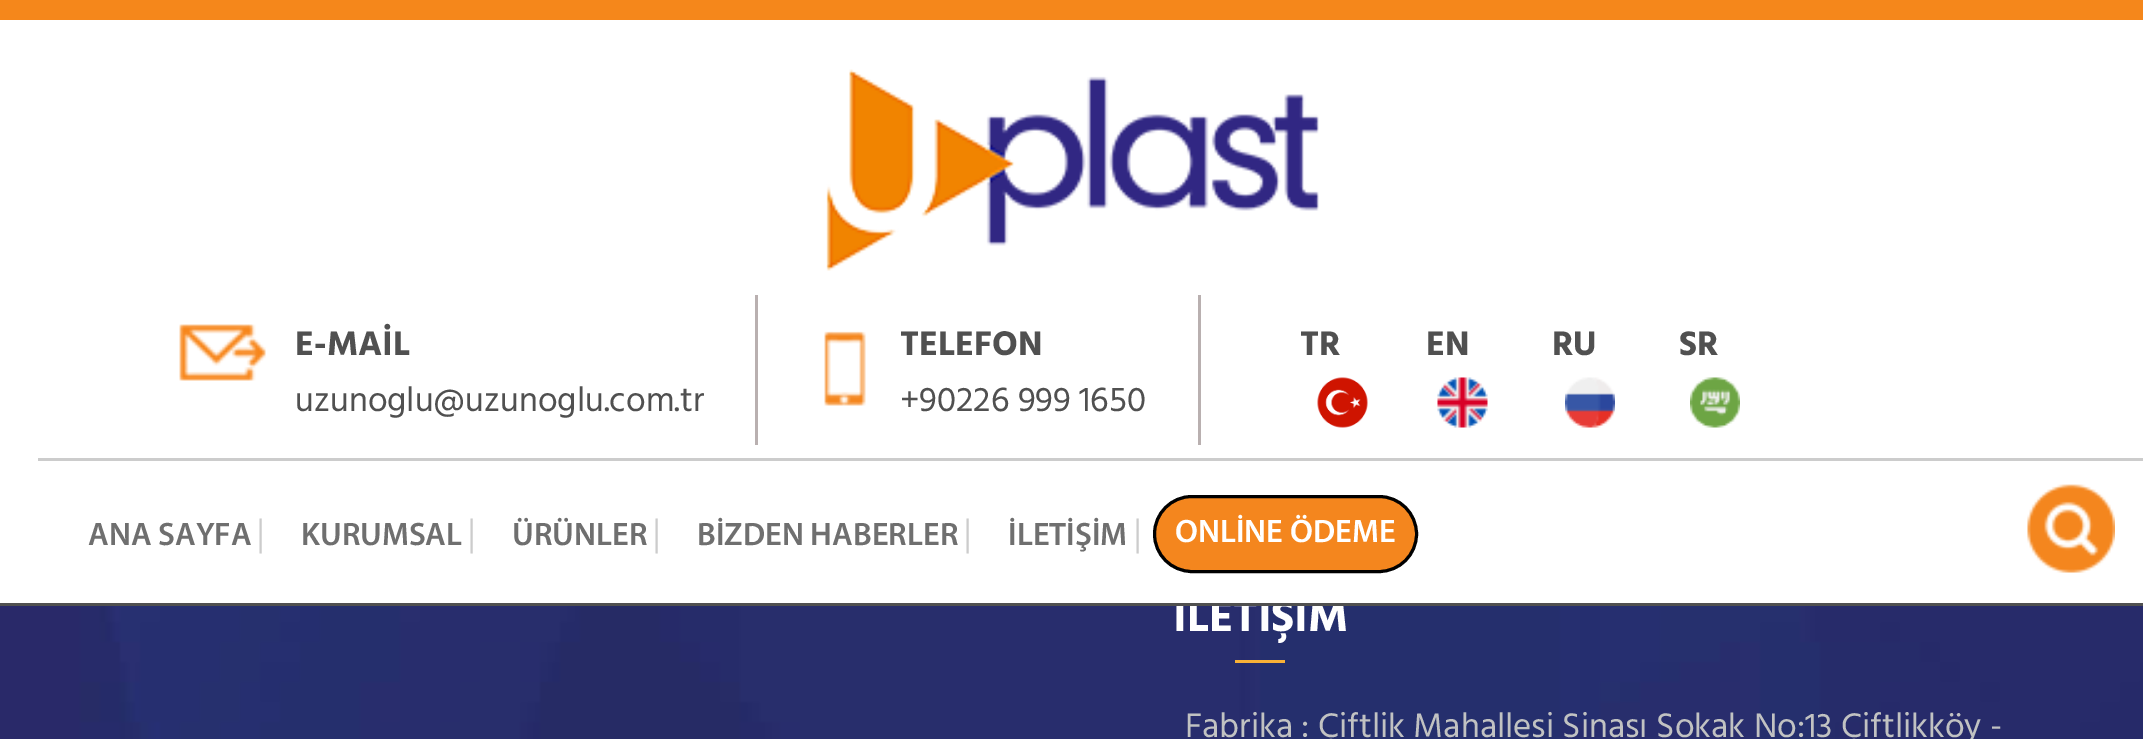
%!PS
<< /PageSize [2143 739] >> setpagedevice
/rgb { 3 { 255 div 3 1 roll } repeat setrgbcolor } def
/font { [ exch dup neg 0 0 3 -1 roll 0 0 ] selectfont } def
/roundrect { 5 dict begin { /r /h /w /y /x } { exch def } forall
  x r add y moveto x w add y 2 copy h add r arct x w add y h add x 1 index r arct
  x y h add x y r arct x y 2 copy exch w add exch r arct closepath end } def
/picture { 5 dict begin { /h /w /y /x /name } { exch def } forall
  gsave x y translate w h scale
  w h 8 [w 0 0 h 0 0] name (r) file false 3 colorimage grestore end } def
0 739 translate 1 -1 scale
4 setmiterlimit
255 255 255 rgb
0 0 2143 739 rectfill
245 135 27 rgb
0 0 2143 20 rectfill
(img/1.rgb) 826 69 493 202 picture
185 176 176 rgb
755 295 3 150 rectfill
(img/2.rgb) 179 324 87 57 picture
1198 295 3 150 rectfill
(img/3.rgb) 824 331 42 75 picture
(img/4.rgb) 1317 377 51 51 picture
(img/5.rgb) 1437 377 51 51 picture
(img/6.rgb) 1565 377 50 51 picture
(img/7.rgb) 1690 377 50 51 picture
204 204 204 rgb
38 458 2105 3 rectfill
244 134 30 rgb
1154.5 496.5 262 75 37.5 roundrect gsave fill grestore
0 0 0 rgb
3 setlinewidth
stroke
(img/8.rgb) 2027 484 88 89 picture
(img/9.rgb) 0 606 2143 133 picture
249 177 55 rgb
1235 660 50 3 rectfill
/Hind-Bold 35 font
80 80 80 rgb
295 355 moveto (E-MAİL) show
/Hind-Regular 35 font
295 411 moveto (uzunoglu@uzunoglu.com.tr) show
/Hind-Bold 35 font
900 355 moveto (TELEFON) show
/Hind-Regular 35 font
900 411 moveto (+90226 999 1650) show
/Hind-Bold 35 font
[
  [(TR) 1300 355]
  [(EN) 1426 355]
  [(RU) 1552 355]
  [(SR) 1679 355]
] { aload pop moveto show } forall
/Myriad-SemiBold 32.5 font
111 111 111 rgb
88 545 moveto (ANA SAYFA) show
/OpenSans-Regular 35 font
204 204 204 rgb
251 545 moveto (|) show
/Myriad-SemiBold 32.5 font
111 111 111 rgb
301 545 moveto (KURUMSAL) show
/OpenSans-Regular 35 font
204 204 204 rgb
462 545 moveto (|) show
/Myriad-SemiBold 32.5 font
111 111 111 rgb
512 545 moveto (ÜRÜNLER) show
/OpenSans-Regular 35 font
204 204 204 rgb
647 545 moveto (|) show
/Myriad-SemiBold 32.5 font
111 111 111 rgb
697 545 moveto (BİZDEN HABERLER) show
/OpenSans-Regular 35 font
204 204 204 rgb
958 545 moveto (|) show
/Myriad-SemiBold 32.5 font
111 111 111 rgb
1008 545 moveto (İLETİŞİM) show
/OpenSans-Regular 35 font
204 204 204 rgb
1128 545 moveto (|) show
/Myriad-SemiBold 32.5 font
255 255 255 rgb
1175 542 moveto (ONLİNE ÖDEME) show
/Hind-Bold 45 font
1173 631 moveto (İLETİŞİM) show
80 80 80 rgb
0 603 2143 3 rectfill
/Hind-Regular 35 font
193 194 194 rgb
1185 737 moveto (Fabrika : Çiftlik Mahallesi Sinası Sokak No:13 Çiftlikköy -) show
showpage
